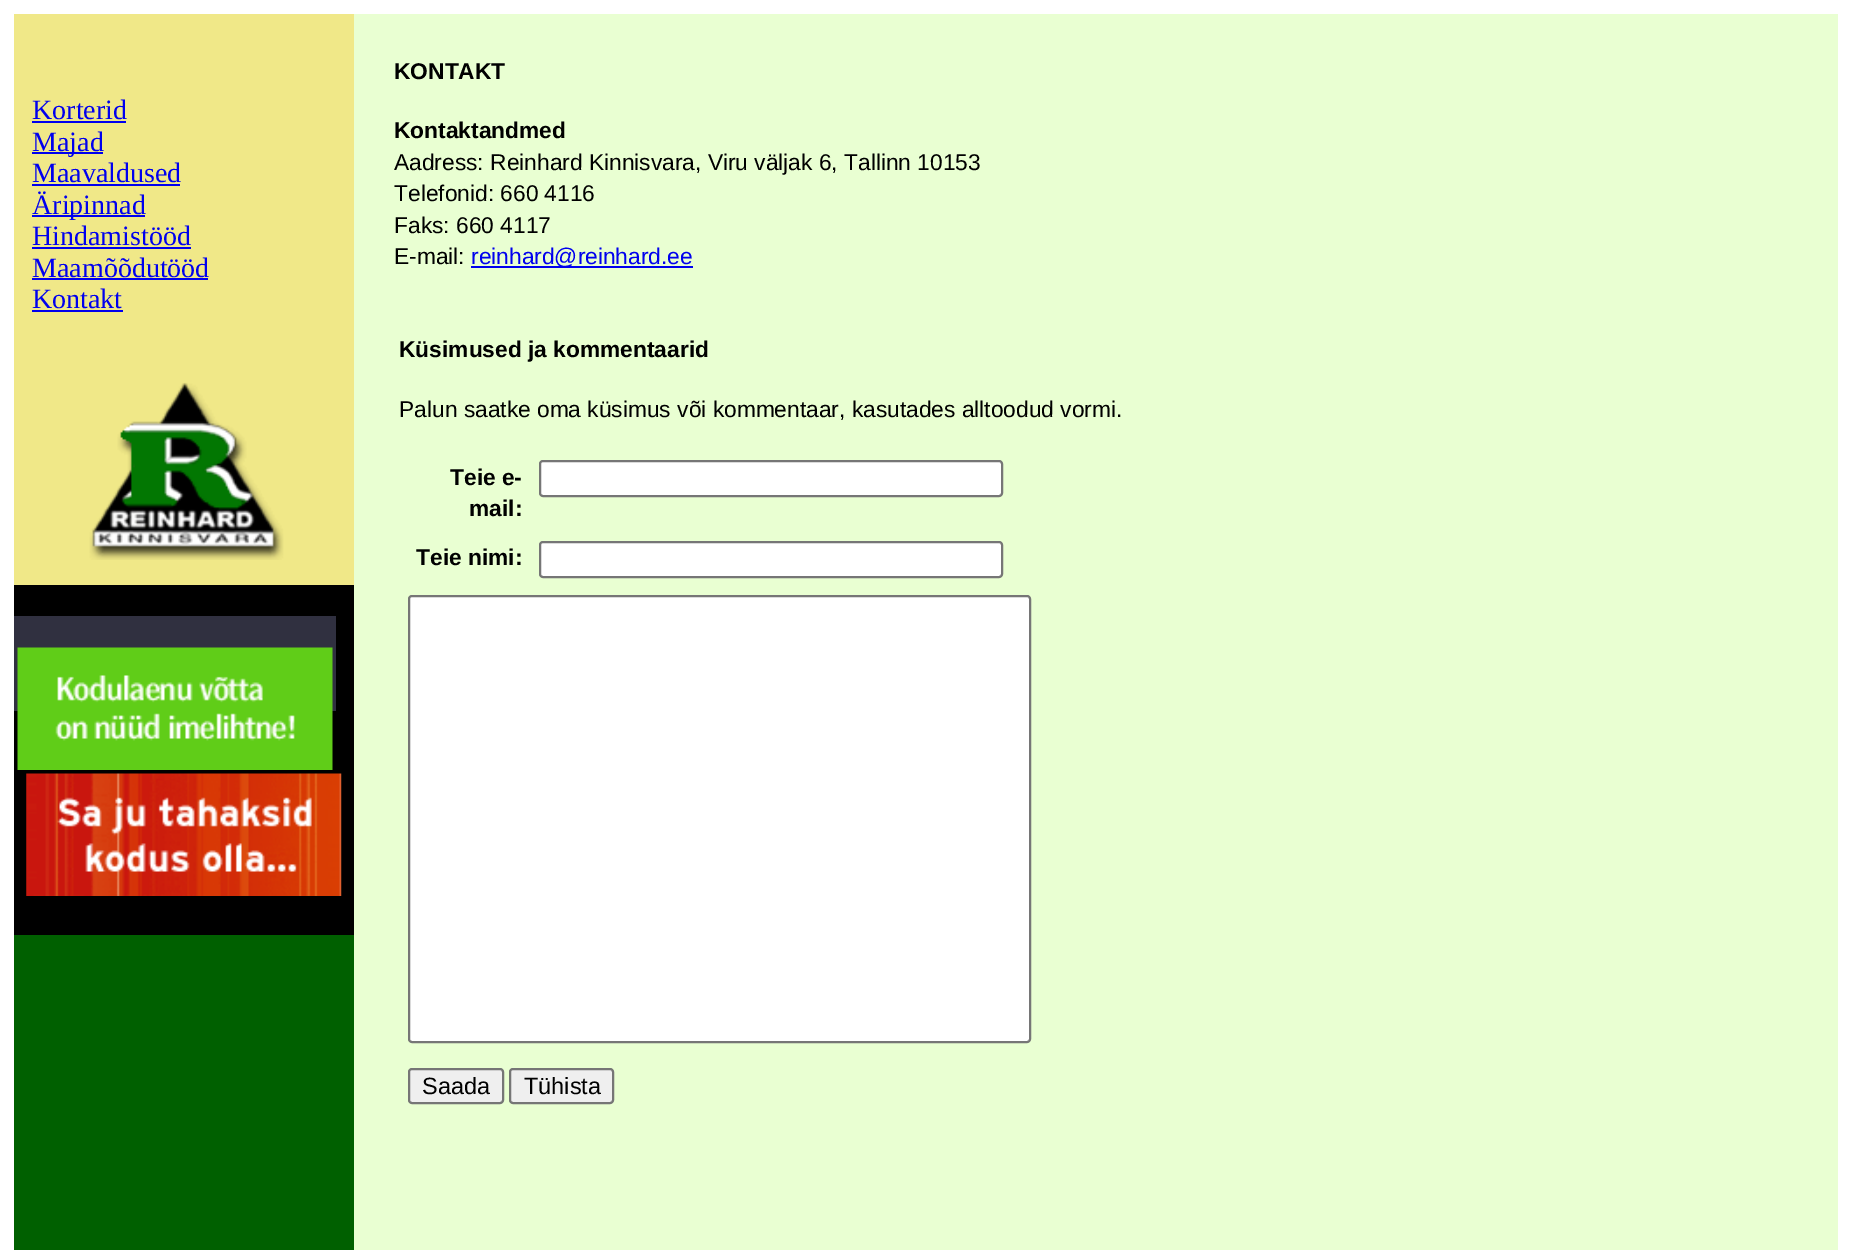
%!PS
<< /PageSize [1850 1250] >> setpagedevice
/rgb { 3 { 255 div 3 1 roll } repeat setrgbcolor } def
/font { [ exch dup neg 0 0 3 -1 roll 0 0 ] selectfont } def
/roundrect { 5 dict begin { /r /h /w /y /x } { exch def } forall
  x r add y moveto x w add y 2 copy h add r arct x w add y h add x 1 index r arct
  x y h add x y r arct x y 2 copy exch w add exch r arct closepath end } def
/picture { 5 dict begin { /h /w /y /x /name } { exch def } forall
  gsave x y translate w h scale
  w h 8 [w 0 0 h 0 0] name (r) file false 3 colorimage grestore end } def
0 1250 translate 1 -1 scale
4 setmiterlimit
255 255 255 rgb
0 0 1850 1250 rectfill
[
  [14 935 340 315 0 96 0]
  [14 14 340 571 240 232 136]
  [32 121 94 2 0 0 238]
  [32 152 71 2 0 0 238]
  [32 184 148 2 0 0 238]
  [32 215 113 2 0 0 238]
  [32 247 159 2 0 0 238]
  [32 278 176 2 0 0 238]
  [32 310 91 2 0 0 238]
] { aload pop rgb rectfill } forall
(img/1.rgb) 89 382 195 178 picture
0 0 0 rgb
14 585 340 350 rectfill
48 48 64 rgb
14 616 322 95 rectfill
(img/2.rgb) 17 647 316 123 picture
(img/3.rgb) 26 773 316 123 picture
233 255 210 rgb
354 14 1484 1236 rectfill
0 0 238 rgb
471 266 222 2 rectfill
255 255 255 rgb
540 461 462 35 3 roundrect gsave fill grestore
118 118 118 rgb
2 setlinewidth
stroke
255 255 255 rgb
540 542 462 35 3 roundrect gsave fill grestore
118 118 118 rgb
stroke
255 255 255 rgb
409 596 621 446 3 roundrect gsave fill grestore
118 118 118 rgb
stroke
239 239 239 rgb
409 1069 94 34 3 roundrect gsave fill grestore
118 118 118 rgb
stroke
239 239 239 rgb
510 1069 103 34 3 roundrect gsave fill grestore
118 118 118 rgb
stroke
/LiberationSerif-Regular 28 font
0 0 238 rgb
[
  [(Korterid) 32 119]
  [(Majad) 32 151]
  [(Maavaldused) 32 182]
  [(Äripinnad) 32 214]
  [(Hindamistööd) 32 245]
  [(Maamõõdutööd) 32 277]
  [(Kontakt) 32 308]
] { aload pop moveto show } forall
/LiberationSans-Bold 22.75 font
0 0 0 rgb
394 79 moveto (KONTAKT) show
394 138 moveto (Kontaktandmed) show
/LiberationSans-Regular 22.75 font
[
  [(Aadress: Reinhard Kinnisvara, Viru väljak 6, Tallinn 10153) 394 170]
  [(Telefonid: 660 4116) 394 201]
  [(Faks: 660 4117) 394 233]
  [(E-mail:) 394 264]
] { aload pop moveto show } forall
0 0 238 rgb
471 264 moveto (reinhard@reinhard.ee) show
/LiberationSans-Bold 22.75 font
0 0 0 rgb
399 357 moveto (Küsimused ja kommentaarid) show
/LiberationSans-Regular 22.75 font
399 417 moveto (Palun saatke oma küsimus või kommentaar, kasutades alltoodud vormi.) show
/LiberationSans-Bold 22.75 font
[
  [(Teie e-) 450 485]
  [(mail:) 469 516]
  [(Teie nimi:) 416 565]
] { aload pop moveto show } forall
/LiberationSans-Regular 23.5 font
422 1094 moveto (Saada) show
524 1094 moveto (Tühista) show
showpage
